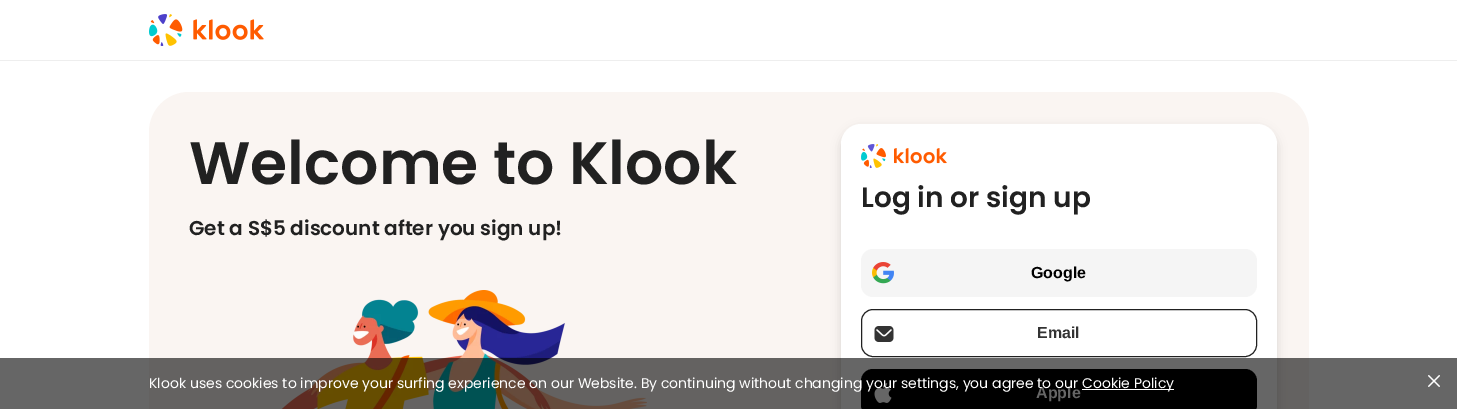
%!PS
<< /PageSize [1457 409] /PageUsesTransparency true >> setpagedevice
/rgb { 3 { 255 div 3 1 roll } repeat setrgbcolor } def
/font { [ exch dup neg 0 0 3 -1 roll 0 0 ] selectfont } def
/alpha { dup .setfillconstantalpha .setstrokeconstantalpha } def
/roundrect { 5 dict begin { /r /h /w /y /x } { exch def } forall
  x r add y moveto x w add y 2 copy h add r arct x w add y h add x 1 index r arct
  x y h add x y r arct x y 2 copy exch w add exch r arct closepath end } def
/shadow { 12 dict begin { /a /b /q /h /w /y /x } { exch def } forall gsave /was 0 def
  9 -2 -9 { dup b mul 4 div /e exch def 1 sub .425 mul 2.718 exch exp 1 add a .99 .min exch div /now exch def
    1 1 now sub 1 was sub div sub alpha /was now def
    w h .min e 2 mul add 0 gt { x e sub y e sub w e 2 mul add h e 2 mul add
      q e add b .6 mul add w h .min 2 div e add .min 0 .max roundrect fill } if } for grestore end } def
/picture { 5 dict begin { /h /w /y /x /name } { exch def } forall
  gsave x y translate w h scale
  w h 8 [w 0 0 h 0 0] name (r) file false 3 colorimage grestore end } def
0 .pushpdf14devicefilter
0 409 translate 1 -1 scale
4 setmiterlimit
255 255 255 rgb
0 0 1457 409 rectfill
238 238 238 rgb
0 60 1457 1 rectfill
(img/1.rgb) 149 14 115 32 picture
250 245 242 rgb
149 92 1160 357 40 roundrect fill
(img/2.rgb) 281 290 366 119 picture
0 0 0 rgb
841 128 436 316 20 5 0.14 shadow
255 255 255 rgb
841 124 436 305 20 roundrect fill
(img/3.rgb) 861 144 86 24 picture
245 245 245 rgb
861 249 396 48 12 roundrect fill
(img/4.rgb) 872 262 22 22 picture
33 33 33 rgb
861.5 309.5 395 47 11.5 roundrect stroke
(img/5.rgb) 874 326 20 16 picture
0 0 0 rgb
861 369 396 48 12 roundrect fill
(img/6.rgb) 874 383 18 20 picture
/Poppins-SemiBold 60 font
33 33 33 rgb
189 184 moveto (Welcome to Klook) show
/Poppins-SemiBold 20 font
189 235 moveto (Get a S$5 discount after you sign up!) show
/Poppins-SemiBold 28 font
861 207 moveto (Log in or sign up) show
/LiberationSans-Bold 16 font
0 0 0 rgb
1031 278 moveto (Google) show
51 51 51 rgb
1037 338 moveto (Email) show
255 255 255 rgb
1036 398 moveto (Apple) show
0.6 alpha
0 0 0 rgb
0 358 1457 51 rectfill
/Poppins-Regular 14 font
1 alpha
255 255 255 rgb
149 388 moveto (Klook uses cookies to improve your surfing experience on our Website. By continuing without changing your settings, you agree to our) show
1082 389 92 1 rectfill
1082 388 moveto (Cookie Policy) show
(img/7.rgb) 1428 375 12 12 picture
.poppdf14devicefilter showpage
